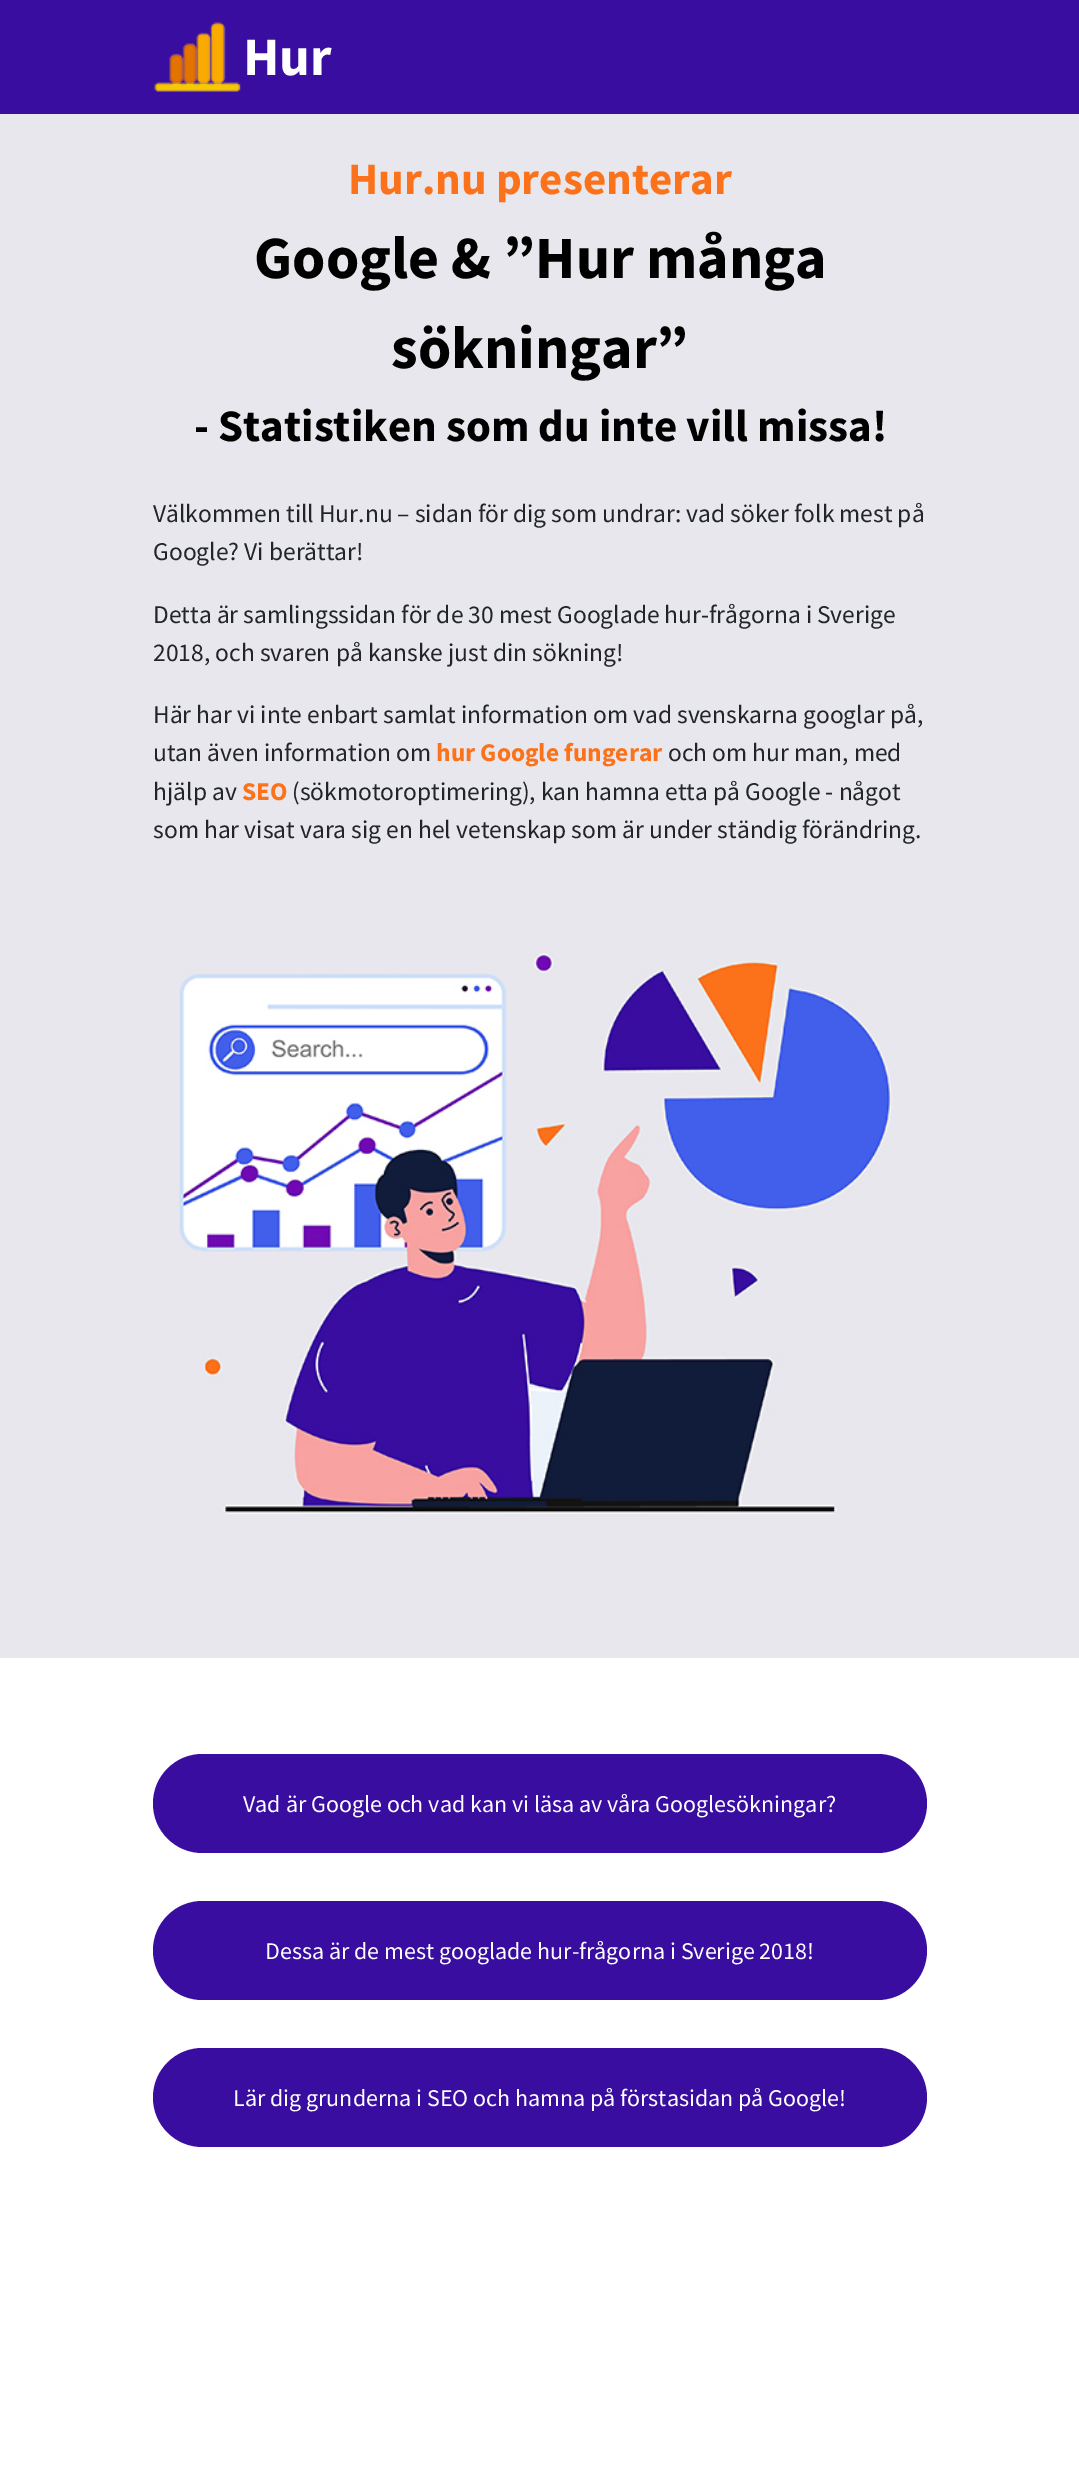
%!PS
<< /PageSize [1079 2487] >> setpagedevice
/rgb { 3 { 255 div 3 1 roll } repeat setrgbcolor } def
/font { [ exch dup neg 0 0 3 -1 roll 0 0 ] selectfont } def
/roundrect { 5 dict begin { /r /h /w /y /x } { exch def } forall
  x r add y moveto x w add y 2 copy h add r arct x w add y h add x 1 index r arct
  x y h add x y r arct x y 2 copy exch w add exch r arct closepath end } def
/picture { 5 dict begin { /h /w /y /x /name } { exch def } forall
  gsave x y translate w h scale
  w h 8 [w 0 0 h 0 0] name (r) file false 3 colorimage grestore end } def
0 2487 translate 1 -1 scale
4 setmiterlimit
255 255 255 rgb
0 0 1079 2487 rectfill
57 13 160 rgb
0 0 1079 114 rectfill
(img/1.rgb) 154 22 87 70 picture
232 231 237 rgb
0 114 1079 1544 rectfill
(img/2.rgb) 179 953 713 561 picture
57 13 160 rgb
153 1754 774 99 49.5 roundrect fill
153 1901 774 99 49.5 roundrect fill
153 2048 774 99 49.5 roundrect fill
/SourceSansPro-Bold 54 font
255 255 255 rgb
243 75 moveto (Hur) show
/SourceSansPro-Bold 45 font
252 114 26 rgb
348 194 moveto (Hur.nu presenterar) show
/SourceSansPro-Bold 60 font
0 0 0 rgb
254 278 moveto (Google & ”Hur många) show
391 368 moveto (sökningar”) show
/SourceSansPro-Bold 45 font
194 441 moveto (- Statistiken som du inte vill missa!) show
/SourceSansPro-Regular 25.5 font
33 37 41 rgb
[
  [(Välkommen till Hur.nu – sidan för dig som undrar: vad söker folk mest på) 153 522]
  [(Google? Vi berättar!) 153 560]
  [(Detta är samlingssidan för de 30 mest Googlade hur-frågorna i Sverige) 153 623]
  [(2018, och svaren på kanske just din sökning!) 153 661]
  [(Här har vi inte enbart samlat information om vad svenskarna googlar på,) 153 723]
  [(utan även information om) 153 761]
] { aload pop moveto show } forall
/SourceSansPro-Bold 25.5 font
252 114 26 rgb
436 761 moveto (hur Google fungerar) show
/SourceSansPro-Regular 25.5 font
33 37 41 rgb
668 761 moveto (och om hur man, med) show
153 800 moveto (hjälp av) show
/SourceSansPro-Bold 25.5 font
252 114 26 rgb
242 800 moveto (SEO) show
/SourceSansPro-Regular 25.5 font
33 37 41 rgb
292 800 moveto (\(sökmotoroptimering\), kan hamna etta på Google - något) show
153 838 moveto (som har visat vara sig en hel vetenskap som är under ständig förändring.) show
/SourceSansPro-Regular 24 font
255 255 255 rgb
[
  [(Vad är Google och vad kan vi läsa av våra Googlesökningar?) 243 1812]
  [(Dessa är de mest googlade hur-frågorna i Sverige 2018!) 265 1959]
  [(Lär dig grunderna i SEO och hamna på förstasidan på Google!) 233 2106]
] { aload pop moveto show } forall
showpage
